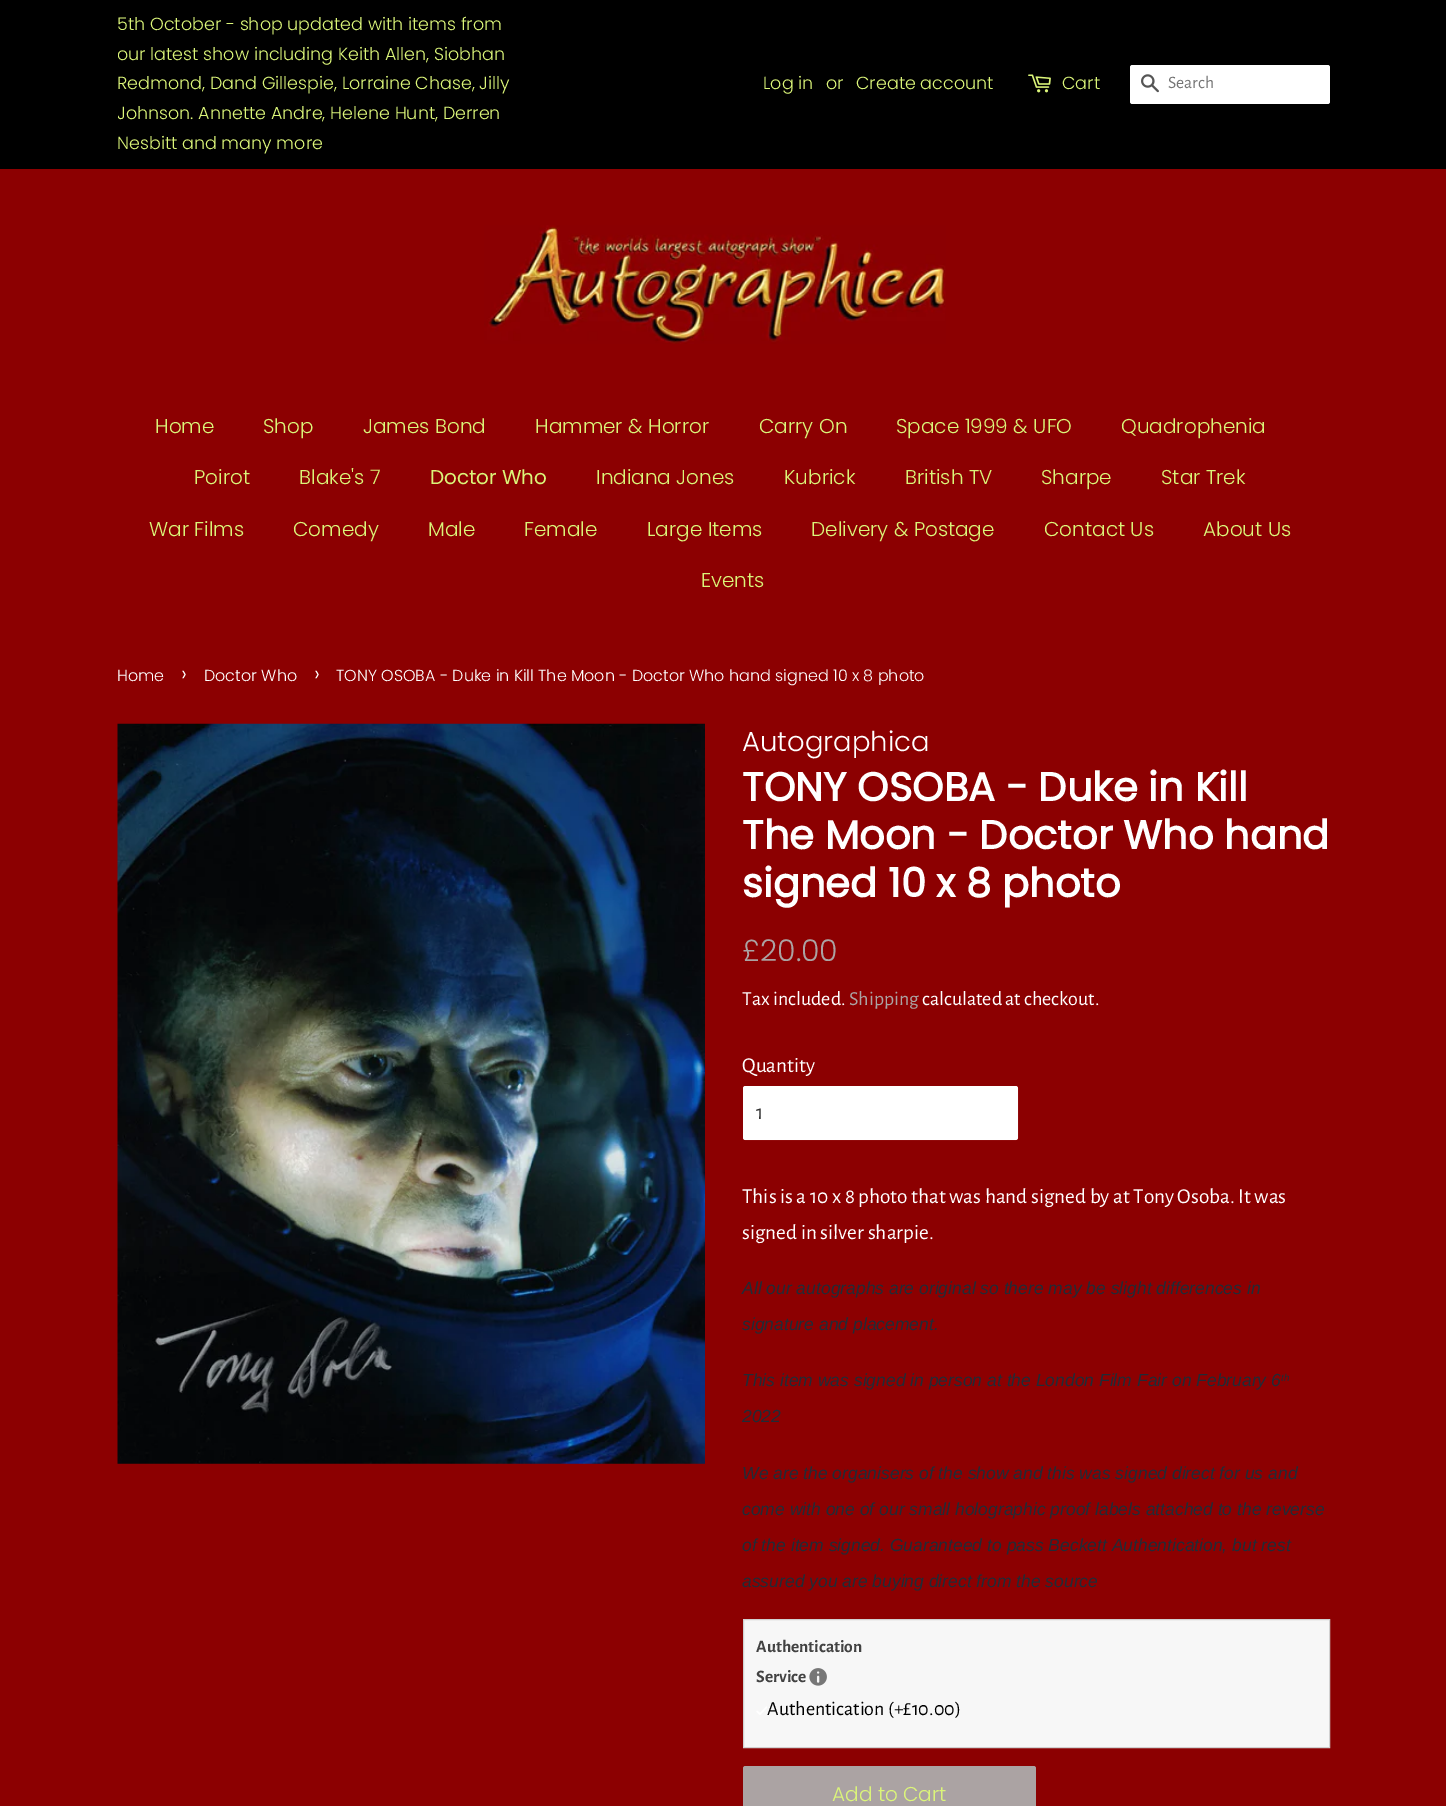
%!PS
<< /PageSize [1446 1806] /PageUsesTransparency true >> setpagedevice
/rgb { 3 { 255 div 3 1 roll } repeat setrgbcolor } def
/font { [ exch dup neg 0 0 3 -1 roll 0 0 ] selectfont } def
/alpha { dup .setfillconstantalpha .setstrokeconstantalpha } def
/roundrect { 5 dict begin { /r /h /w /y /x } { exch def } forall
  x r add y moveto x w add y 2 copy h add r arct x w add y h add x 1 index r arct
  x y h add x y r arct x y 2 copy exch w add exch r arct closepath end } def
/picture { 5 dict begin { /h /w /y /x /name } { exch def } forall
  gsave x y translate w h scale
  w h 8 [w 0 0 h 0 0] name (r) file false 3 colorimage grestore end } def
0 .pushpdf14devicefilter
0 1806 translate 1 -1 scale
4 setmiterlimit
140 0 1 rgb
0 0 1446 1806 rectfill
0 0 0 rgb
0 0 1446 169 rectfill
(img/1.rgb) 1028 74 23 19 picture
255 255 255 rgb
1130 65 200 39 2.5 roundrect fill
(img/2.rgb) 1141 74 18 19 picture
(img/3.rgb) 484 225 462 119 picture
(img/4.rgb) 117 723 588 741 picture
743 1086 275 54 2.5 roundrect fill
0.15 alpha
743.5 1086.5 274 53 2 roundrect stroke
1 alpha
247 247 247 rgb
743.5 1619.5 moveto 1329.5 1619.5 lineto 1329.5 1747.5 lineto 743.5 1747.5 lineto closepath gsave fill grestore
209 209 209 rgb
stroke
(img/5.rgb) 809 1668 18 18 picture
(img/6.rgb) 756 1706 11 9 picture
171 163 163 rgb
743 1766 293 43 2.5 roundrect fill
/Poppins-Light 17.5 font
219 245 121 rgb
117 30 moveto (5th October - shop updated with items from) show
gsave
118 10 403 149 rectclip
117 60 moveto (our latest show including Keith Allen, Siobhan) show
grestore
117 89 moveto (Redmond, Dand Gillespie, Lorraine Chase, Jilly) show
gsave
118 10 403 149 rectclip
117 119 moveto (Johnson. Annette Andre, Helene Hunt, Derren) show
grestore
[
  [(Nesbitt and many more) 117 149]
  [(Log in) 763 89]
  [(or) 826 89]
  [(Create account) 856 89]
  [(Cart) 1062 89]
] { aload pop moveto show } forall
/AlegreyaSans-Regular 17.5 font
117 117 117 rgb
1168 88 moveto (Search) show
/Poppins-Light 20 font
219 245 121 rgb
[
  [(Home) 155 433]
  [(Shop) 263 433]
  [(James Bond) 363 433]
  [(Hammer & Horror) 535 433]
  [(Carry On) 759 433]
  [(Space 1999 & UFO) 896 433]
  [(Quadrophenia) 1121 433]
  [(Poirot) 194 484]
  [(Blake's 7) 299 484]
] { aload pop moveto show } forall
/Poppins-Regular 20 font
430 484 moveto (Doctor Who) show
/Poppins-Light 20 font
[
  [(Indiana Jones) 596 484]
  [(Kubrick) 784 484]
  [(British TV) 905 484]
  [(Sharpe) 1041 484]
  [(Star Trek) 1161 484]
  [(War Films) 149 536]
  [(Comedy) 293 536]
  [(Male) 428 536]
  [(Female) 524 536]
  [(Large Items) 647 536]
  [(Delivery & Postage) 811 536]
  [(Contact Us) 1044 536]
  [(About Us) 1203 536]
  [(Events) 701 587]
] { aload pop moveto show } forall
/Poppins-Light 15.95 font
255 255 255 rgb
117 681 moveto (Home) show
/Poppins-Light 22 font
181 681 moveto (›) show
/Poppins-Light 15.95 font
204 681 moveto (Doctor Who) show
/Poppins-Light 22 font
314 681 moveto (›) show
/Poppins-Light 15.95 font
336 681 moveto (TONY OSOBA - Duke in Kill The Moon - Doctor Who hand signed 10 x 8 photo) show
/Poppins-Light 27.5 font
742 751 moveto (Autographica) show
/Poppins-Bold 40 font
[
  [(TONY OSOBA - Duke in Kill) 742 801]
  [(The Moon - Doctor Who hand) 742 849]
  [(signed 10 x 8 photo) 742 897]
] { aload pop moveto show } forall
/Poppins-Light 30 font
171 163 163 rgb
742 961 moveto (£20.00) show
/AlegreyaSans-Regular 20 font
255 255 255 rgb
742 1005 moveto (Tax included.) show
171 163 163 rgb
849 1005 moveto (Shipping) show
255 255 255 rgb
922 1005 moveto (calculated at checkout.) show
/AlegreyaSans-Regular 21.25 font
742 1072 moveto (Quantity) show
51 51 51 rgb
756 1119 moveto (1) show
255 255 255 rgb
742 1203 moveto (This is a 10 x 8 photo that was hand signed by at Tony Osoba. It was) show
742 1239 moveto (signed in silver sharpie.) show
/LiberationSans-Italic 17.5 font
33 43 54 rgb
[
  [(All our autographs are original so there may be slight differences in) 742 1294]
  [(signature and placement.) 742 1330]
  [(This item was signed in person at the London Film Fair on February 6) 742 1386]
] { aload pop moveto show } forall
/LiberationSans-Italic 10 font
1281 1381 moveto (th) show
/LiberationSans-Italic 17.5 font
[
  [(2022) 742 1422]
  [(We are the organisers of the show and this was signed direct for us and) 742 1479]
  [(come with one of our small holographic proof labels attached to the reverse) 742 1515]
  [(of the item signed. Guaranteed to pass Beckett Authentication, but rest) 742 1551]
  [(assured you are buying direct from the source) 742 1587]
] { aload pop moveto show } forall
/AlegreyaSans-Bold 17.5 font
66 66 66 rgb
756 1652 moveto (Authentication) show
756 1682 moveto (Service) show
/AlegreyaSans-Regular 20 font
0 0 0 rgb
767 1715 moveto (Authentication \(+£10.00\)) show
/Poppins-Light 20 font
219 245 121 rgb
832 1801 moveto (Add to Cart) show
.poppdf14devicefilter showpage
